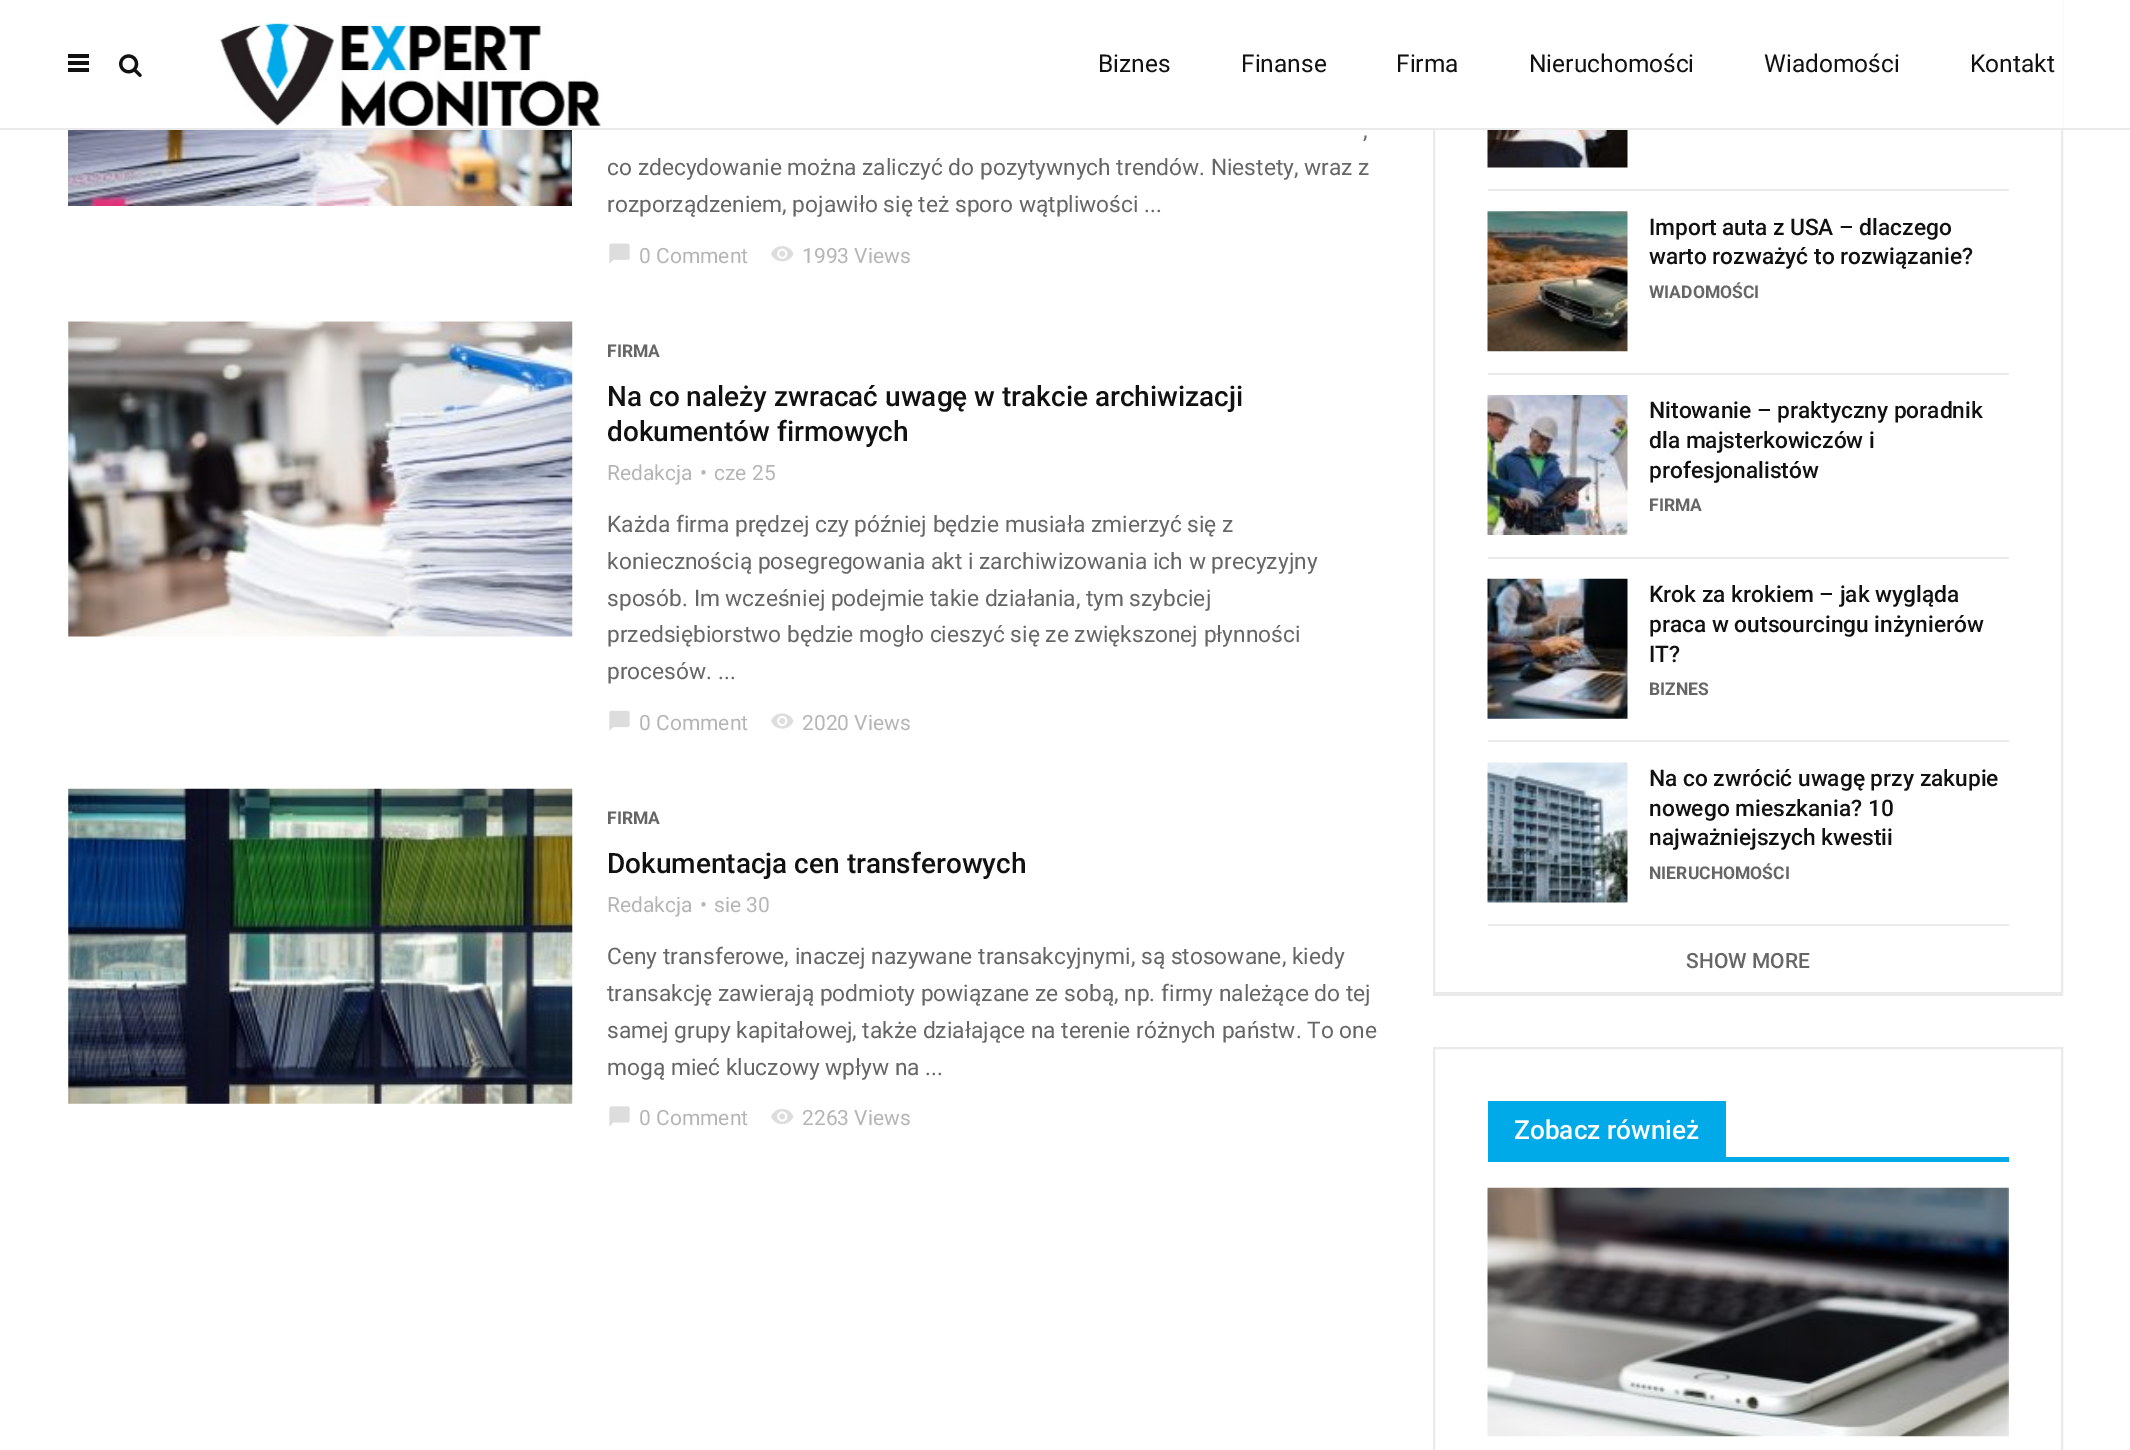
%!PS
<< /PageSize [2130 1450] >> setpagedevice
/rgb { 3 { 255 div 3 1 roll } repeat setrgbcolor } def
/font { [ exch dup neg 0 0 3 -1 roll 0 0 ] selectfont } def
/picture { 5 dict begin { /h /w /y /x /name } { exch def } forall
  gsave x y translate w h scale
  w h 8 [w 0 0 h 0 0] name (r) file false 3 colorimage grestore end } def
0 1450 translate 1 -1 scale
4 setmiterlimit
255 255 255 rgb
0 0 2130 1450 rectfill
234 234 234 rgb
2 setlinewidth
1434 -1 628 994 rectstroke
[
  [1433 0 630 128 255 255 255]
  [0 128 2130 2 234 234 234]
  [68 54 21 4 17 17 17]
  [68 61 21 4 17 17 17]
  [68 68 21 4 17 17 17]
] { aload pop rgb rectfill } forall
(img/1.rgb) 119 54 23 23 picture
(img/2.rgb) 220 23 381 104 picture
(img/3.rgb) 68 130 504 76 picture
(img/4.rgb) 609 243 21 21 picture
(img/5.rgb) 771 246 23 16 picture
(img/6.rgb) 68 321 505 316 picture
(img/7.rgb) 609 710 21 21 picture
(img/8.rgb) 771 713 23 16 picture
(img/9.rgb) 68 788 505 316 picture
(img/10.rgb) 609 1106 21 21 picture
(img/11.rgb) 771 1108 23 17 picture
234 234 234 rgb
1433 -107 moveto 1433 996 lineto 2063 996 lineto 2063 994 lineto 1433 994 lineto closepath fill
1488 189 521 2 rectfill
(img/12.rgb) 1487 130 141 38 picture
1488 373 521 2 rectfill
(img/13.rgb) 1487 211 141 141 picture
1488 557 521 2 rectfill
(img/14.rgb) 1487 395 141 140 picture
1488 740 521 2 rectfill
(img/15.rgb) 1487 578 141 141 picture
1488 924 521 2 rectfill
(img/16.rgb) 1487 762 141 141 picture
1434 1048 628 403 rectstroke
0 170 232 rgb
1488 1157 521 5 rectfill
1488 1101 238 56 rectfill
(img/17.rgb) 1487 1187 522 250 picture
/Roboto-Regular 24.5 font
17 17 17 rgb
[
  [(Biznes) 1098 72]
  [(Finanse) 1241 72]
  [(Firma) 1396 72]
  [(Nieruchomości) 1529 72]
  [(Wiadomości) 1764 72]
  [(Kontakt) 1970 72]
] { aload pop moveto show } forall
/Roboto-Regular 22.75 font
102 102 102 rgb
[
  [(,) 1363 138]
  [(co zdecydowanie można zaliczyć do pozytywnych trendów. Niestety, wraz z) 607 175]
  [(rozporządzeniem, pojawiło się też sporo wątpliwości ...) 607 212]
] { aload pop moveto show } forall
/Roboto-Regular 21 font
181 181 181 rgb
639 263 moveto (0 Comment) show
802 263 moveto (1993 Views) show
/Roboto-Bold 17.5 font
102 102 102 rgb
607 357 moveto (FIRMA) show
/Roboto-Medium 28 font
17 17 17 rgb
607 406 moveto (Na co należy zwracać uwagę w trakcie archiwizacji) show
607 441 moveto (dokumentów firmowych) show
/Roboto-Regular 21 font
181 181 181 rgb
[
  [(Redakcja) 607 480]
  [(•) 700 480]
  [(cze 25) 714 480]
] { aload pop moveto show } forall
/Roboto-Regular 22.75 font
102 102 102 rgb
[
  [(Każda firma prędzej czy później będzie musiała zmierzyć się z) 607 532]
  [(koniecznością posegregowania akt i zarchiwizowania ich w precyzyjny) 607 569]
  [(sposób. Im wcześniej podejmie takie działania, tym szybciej) 607 606]
  [(przedsiębiorstwo będzie mogło cieszyć się ze zwiększonej płynności) 607 642]
  [(procesów. ...) 607 679]
] { aload pop moveto show } forall
/Roboto-Regular 21 font
181 181 181 rgb
639 730 moveto (0 Comment) show
802 730 moveto (2020 Views) show
/Roboto-Bold 17.5 font
102 102 102 rgb
607 824 moveto (FIRMA) show
/Roboto-Medium 28 font
17 17 17 rgb
607 873 moveto (Dokumentacja cen transferowych) show
/Roboto-Regular 21 font
181 181 181 rgb
[
  [(Redakcja) 607 912]
  [(•) 700 912]
  [(sie 30) 714 912]
] { aload pop moveto show } forall
/Roboto-Regular 22.75 font
102 102 102 rgb
[
  [(Ceny transferowe, inaczej nazywane transakcyjnymi, są stosowane, kiedy) 607 964]
  [(transakcję zawierają podmioty powiązane ze sobą, np. firmy należące do tej) 607 1001]
  [(samej grupy kapitałowej, także działające na terenie różnych państw. To one) 607 1038]
  [(mogą mieć kluczowy wpływ na ...) 607 1075]
] { aload pop moveto show } forall
/Roboto-Regular 21 font
181 181 181 rgb
639 1125 moveto (0 Comment) show
802 1125 moveto (2263 Views) show
/Roboto-Medium 22.75 font
17 17 17 rgb
1649 235 moveto (Import auta z USA – dlaczego) show
1649 264 moveto (warto rozważyć to rozwiązanie?) show
/Roboto-Bold 17.5 font
102 102 102 rgb
1649 298 moveto (WIADOMOŚCI) show
/Roboto-Medium 22.75 font
17 17 17 rgb
[
  [(Nitowanie – praktyczny poradnik) 1649 418]
  [(dla majsterkowiczów i) 1649 448]
  [(profesjonalistów) 1649 478]
] { aload pop moveto show } forall
/Roboto-Bold 17.5 font
102 102 102 rgb
1649 511 moveto (FIRMA) show
/Roboto-Medium 22.75 font
17 17 17 rgb
[
  [(Krok za krokiem – jak wygląda) 1649 602]
  [(praca w outsourcingu inżynierów) 1649 632]
  [(IT?) 1649 662]
] { aload pop moveto show } forall
/Roboto-Bold 17.5 font
102 102 102 rgb
1649 695 moveto (BIZNES) show
/Roboto-Medium 22.75 font
17 17 17 rgb
[
  [(Na co zwrócić uwagę przy zakupie) 1649 786]
  [(nowego mieszkania? 10) 1649 816]
  [(najważniejszych kwestii) 1649 845]
] { aload pop moveto show } forall
/Roboto-Bold 17.5 font
102 102 102 rgb
1649 879 moveto (NIERUCHOMOŚCI) show
/Roboto-Medium 21 font
1686 968 moveto (SHOW MORE) show
/Roboto-Medium 26.25 font
255 255 255 rgb
1514 1139 moveto (Zobacz również) show
showpage
